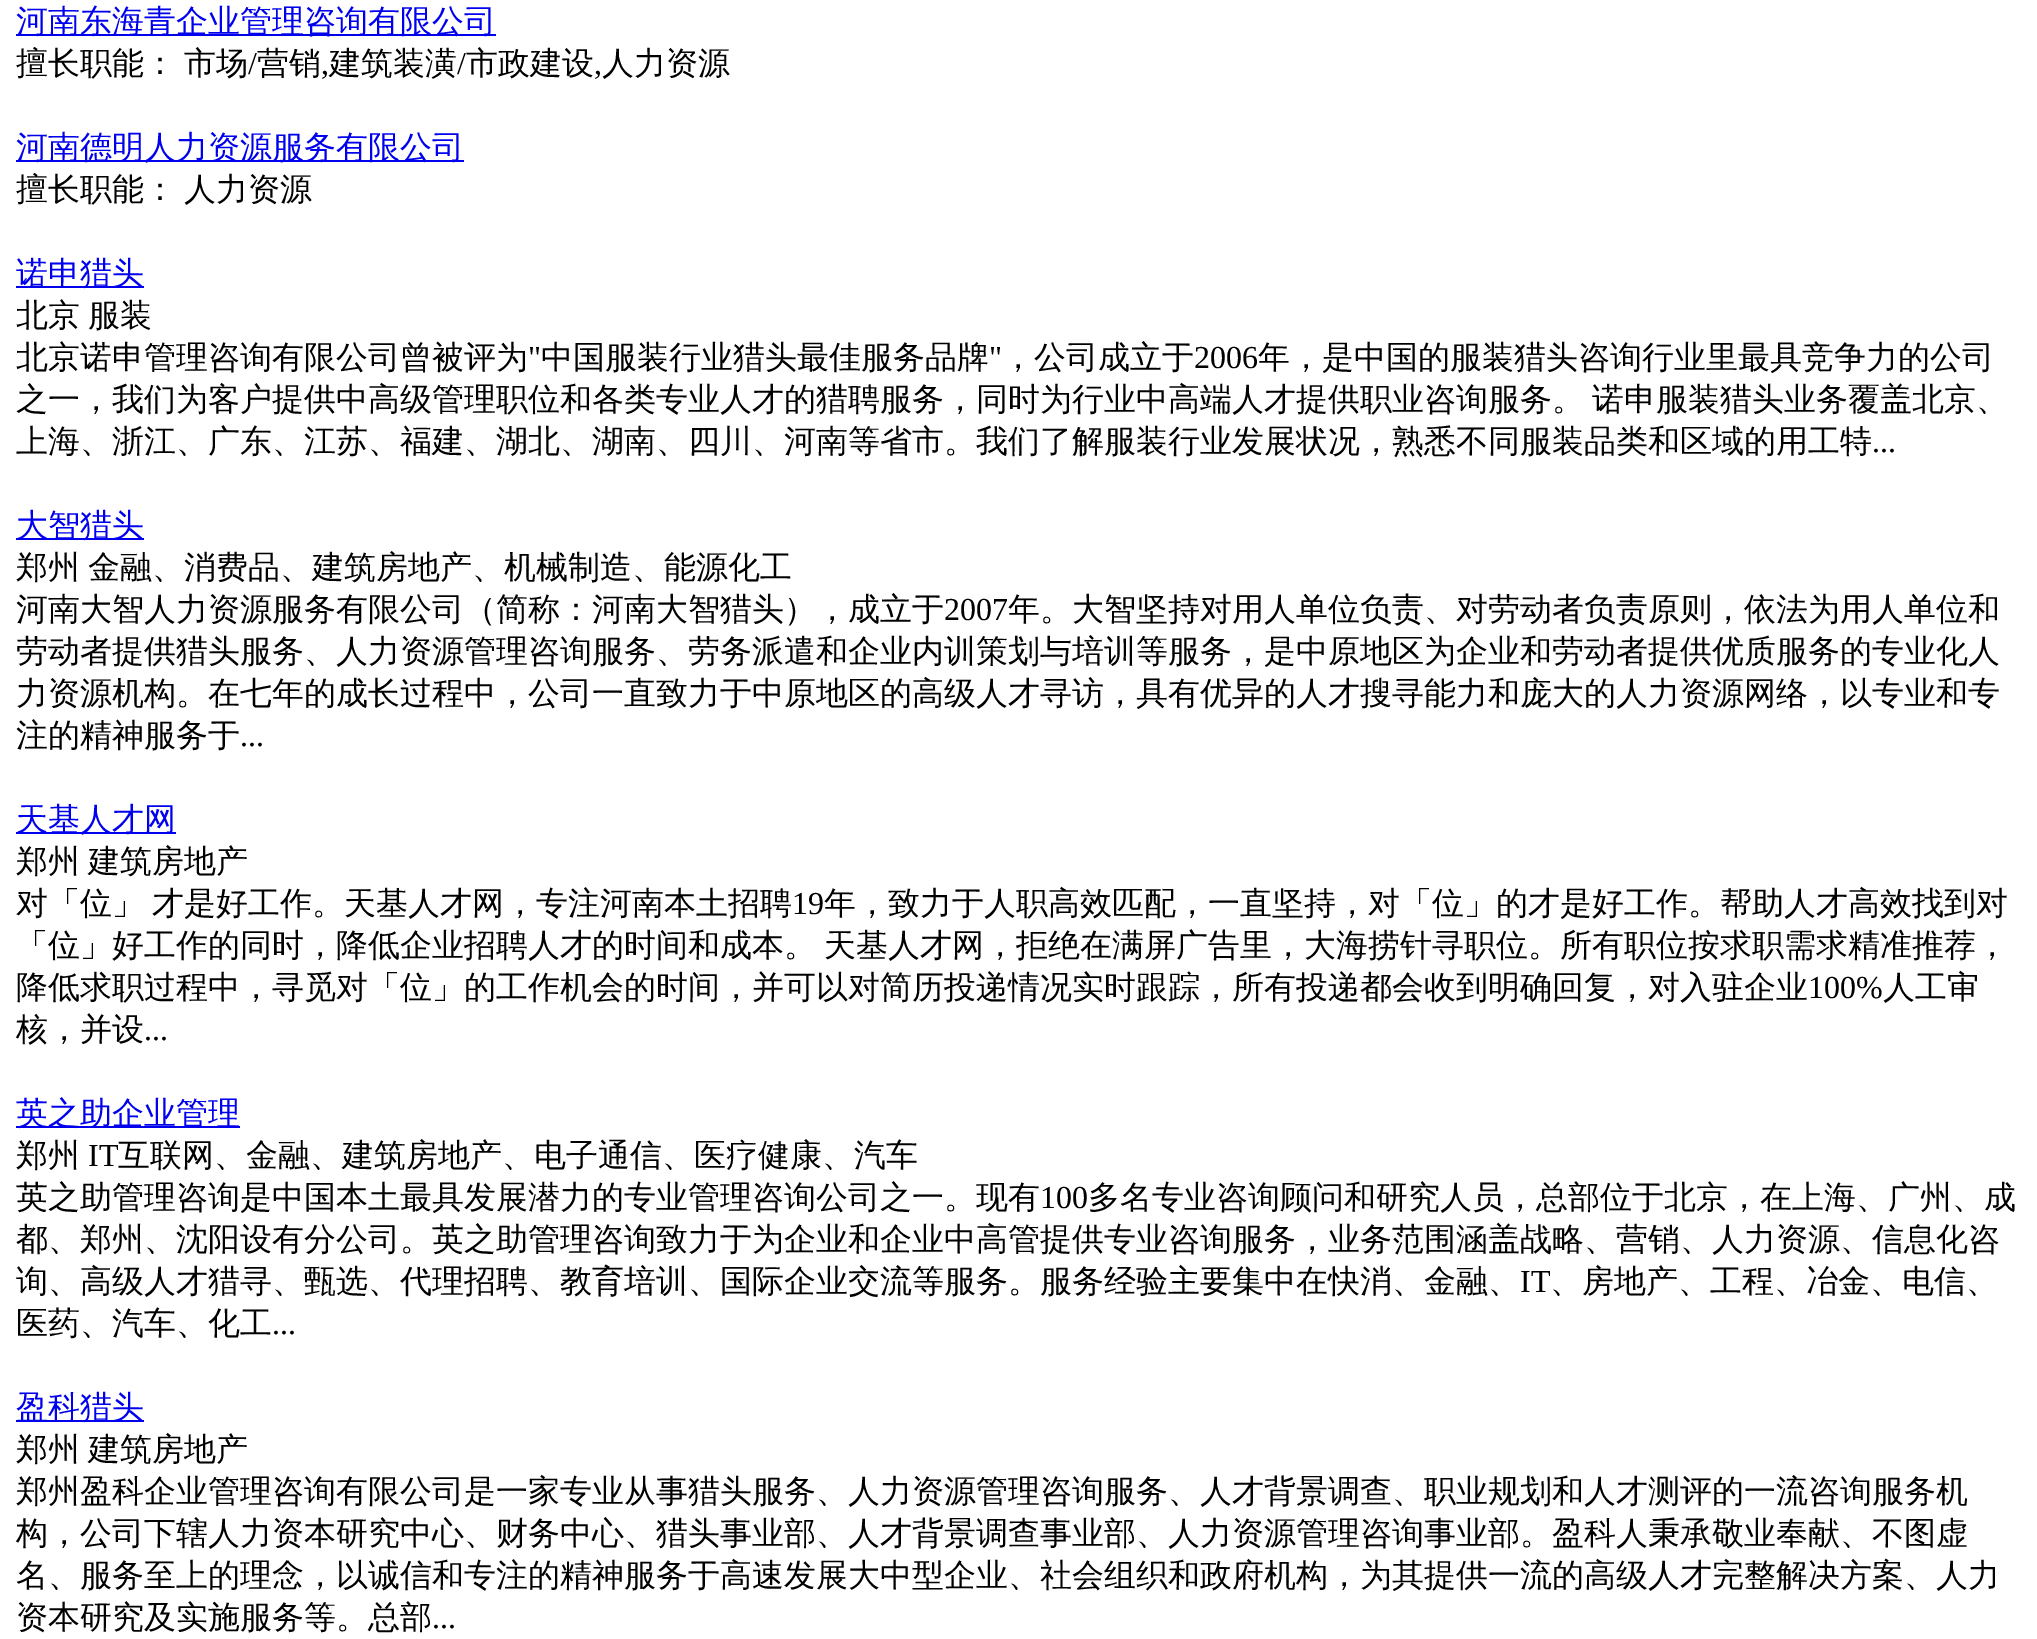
%!PS
<< /PageSize [2037 1639] >> setpagedevice
/rgb { 3 { 255 div 3 1 roll } repeat setrgbcolor } def
/font { [ exch dup neg 0 0 3 -1 roll 0 0 ] selectfont } def
0 1639 translate 1 -1 scale
4 setmiterlimit
255 255 255 rgb
0 0 2037 1639 rectfill
[
  [16 34 480 2 0 0 238]
  [16 160 448 2 0 0 238]
  [16 286 128 2 0 0 238]
  [16 538 128 2 0 0 238]
  [16 832 160 2 0 0 238]
  [16 1126 224 2 0 0 238]
  [16 1420 128 2 0 0 238]
] { aload pop rgb rectfill } forall
/WenQuanYiZenHei-Medium 32 font
16 32 moveto (河南东海青企业管理咨询有限公司) show
0 0 0 rgb
16 74 moveto -2 0 32 (擅长职能： 市场) widthshow
/LiberationSerif-Regular 32 font
248 74 moveto (/) show
/WenQuanYiZenHei-Medium 32 font
257 74 moveto (营销) show
/LiberationSerif-Regular 32 font
321 74 moveto (,) show
/WenQuanYiZenHei-Medium 32 font
329 74 moveto (建筑装潢) show
/LiberationSerif-Regular 32 font
457 74 moveto (/) show
/WenQuanYiZenHei-Medium 32 font
466 74 moveto (市政建设) show
/LiberationSerif-Regular 32 font
594 74 moveto (,) show
/WenQuanYiZenHei-Medium 32 font
602 74 moveto (人力资源) show
0 0 238 rgb
16 158 moveto (河南德明人力资源服务有限公司) show
0 0 0 rgb
16 200 moveto -2 0 32 (擅长职能： 人力资源) widthshow
0 0 238 rgb
16 284 moveto (诺申猎头) show
0 0 0 rgb
[
  [(北京) 16 326]
  [(服装) 88 326]
  [(北京诺申管理咨询有限公司曾被评为) 16 368]
] { aload pop moveto show } forall
/LiberationSerif-Regular 32 font
528 368 moveto (") show
/WenQuanYiZenHei-Medium 32 font
541 368 moveto (中国服装行业猎头最佳服务品牌) show
/LiberationSerif-Regular 32 font
989 368 moveto (") show
/WenQuanYiZenHei-Medium 32 font
1002 368 moveto (，公司成立于) show
/LiberationSerif-Regular 32 font
1194 368 moveto (2006) show
/WenQuanYiZenHei-Medium 32 font
1258 368 moveto (年，是中国的服装猎头咨询行业里最具竞争力的公司) show
16 410 moveto -2 0 32 (之一，我们为客户提供中高级管理职位和各类专业人才的猎聘服务，同时为行业中高端人才提供职业咨询服务。 诺申服装猎头业务覆盖北京、) widthshow
16 452 moveto (上海、浙江、广东、江苏、福建、湖北、湖南、四川、河南等省市。我们了解服装行业发展状况，熟悉不同服装品类和区域的用工特) show
/LiberationSerif-Regular 32 font
1872 452 moveto (...) show
/WenQuanYiZenHei-Medium 32 font
0 0 238 rgb
16 536 moveto (大智猎头) show
0 0 0 rgb
[
  [(郑州) 16 578]
  [(金融、消费品、建筑房地产、机械制造、能源化工) 88 578]
  [(河南大智人力资源服务有限公司（简称：河南大智猎头），成立于) 16 620]
] { aload pop moveto show } forall
/LiberationSerif-Regular 32 font
944 620 moveto (2007) show
/WenQuanYiZenHei-Medium 32 font
[
  [(年。大智坚持对用人单位负责、对劳动者负责原则，依法为用人单位和) 1008 620]
  [(劳动者提供猎头服务、人力资源管理咨询服务、劳务派遣和企业内训策划与培训等服务，是中原地区为企业和劳动者提供优质服务的专业化人) 16 662]
  [(力资源机构。在七年的成长过程中，公司一直致力于中原地区的高级人才寻访，具有优异的人才搜寻能力和庞大的人力资源网络，以专业和专) 16 704]
  [(注的精神服务于) 16 746]
] { aload pop moveto show } forall
/LiberationSerif-Regular 32 font
240 746 moveto (...) show
/WenQuanYiZenHei-Medium 32 font
0 0 238 rgb
16 830 moveto (天基人才网) show
0 0 0 rgb
16 872 moveto (郑州) show
88 872 moveto (建筑房地产) show
16 914 moveto -2 0 32 (对「位」 才是好工作。天基人才网，专注河南本土招聘) widthshow
/LiberationSerif-Regular 32 font
792 914 moveto (19) show
/WenQuanYiZenHei-Medium 32 font
824 914 moveto (年，致力于人职高效匹配，一直坚持，对「位」的才是好工作。帮助人才高效找到对) show
16 956 moveto -2 0 32 (「位」好工作的同时，降低企业招聘人才的时间和成本。 天基人才网，拒绝在满屏广告里，大海捞针寻职位。所有职位按求职需求精准推荐，) widthshow
16 998 moveto (降低求职过程中，寻觅对「位」的工作机会的时间，并可以对简历投递情况实时跟踪，所有投递都会收到明确回复，对入驻企业) show
/LiberationSerif-Regular 32 font
1808 998 moveto (100%) show
/WenQuanYiZenHei-Medium 32 font
1883 998 moveto (人工审) show
16 1040 moveto (核，并设) show
/LiberationSerif-Regular 32 font
144 1040 moveto (...) show
/WenQuanYiZenHei-Medium 32 font
0 0 238 rgb
16 1124 moveto (英之助企业管理) show
0 0 0 rgb
16 1166 moveto (郑州) show
/LiberationSerif-Regular 32 font
88 1166 moveto (IT) show
/WenQuanYiZenHei-Medium 32 font
118 1166 moveto (互联网、金融、建筑房地产、电子通信、医疗健康、汽车) show
16 1208 moveto (英之助管理咨询是中国本土最具发展潜力的专业管理咨询公司之一。现有) show
/LiberationSerif-Regular 32 font
1040 1208 moveto (100) show
/WenQuanYiZenHei-Medium 32 font
[
  [(多名专业咨询顾问和研究人员，总部位于北京，在上海、广州、成) 1088 1208]
  [(都、郑州、沈阳设有分公司。英之助管理咨询致力于为企业和企业中高管提供专业咨询服务，业务范围涵盖战略、营销、人力资源、信息化咨) 16 1250]
  [(询、高级人才猎寻、甄选、代理招聘、教育培训、国际企业交流等服务。服务经验主要集中在快消、金融、) 16 1292]
] { aload pop moveto show } forall
/LiberationSerif-Regular 32 font
1520 1292 moveto (IT) show
/WenQuanYiZenHei-Medium 32 font
1550 1292 moveto (、房地产、工程、冶金、电信、) show
16 1334 moveto (医药、汽车、化工) show
/LiberationSerif-Regular 32 font
272 1334 moveto (...) show
/WenQuanYiZenHei-Medium 32 font
0 0 238 rgb
16 1418 moveto (盈科猎头) show
0 0 0 rgb
[
  [(郑州) 16 1460]
  [(建筑房地产) 88 1460]
  [(郑州盈科企业管理咨询有限公司是一家专业从事猎头服务、人力资源管理咨询服务、人才背景调查、职业规划和人才测评的一流咨询服务机) 16 1502]
  [(构，公司下辖人力资本研究中心、财务中心、猎头事业部、人才背景调查事业部、人力资源管理咨询事业部。盈科人秉承敬业奉献、不图虚) 16 1544]
  [(名、服务至上的理念，以诚信和专注的精神服务于高速发展大中型企业、社会组织和政府机构，为其提供一流的高级人才完整解决方案、人力) 16 1586]
  [(资本研究及实施服务等。总部) 16 1628]
] { aload pop moveto show } forall
/LiberationSerif-Regular 32 font
432 1628 moveto (...) show
showpage
